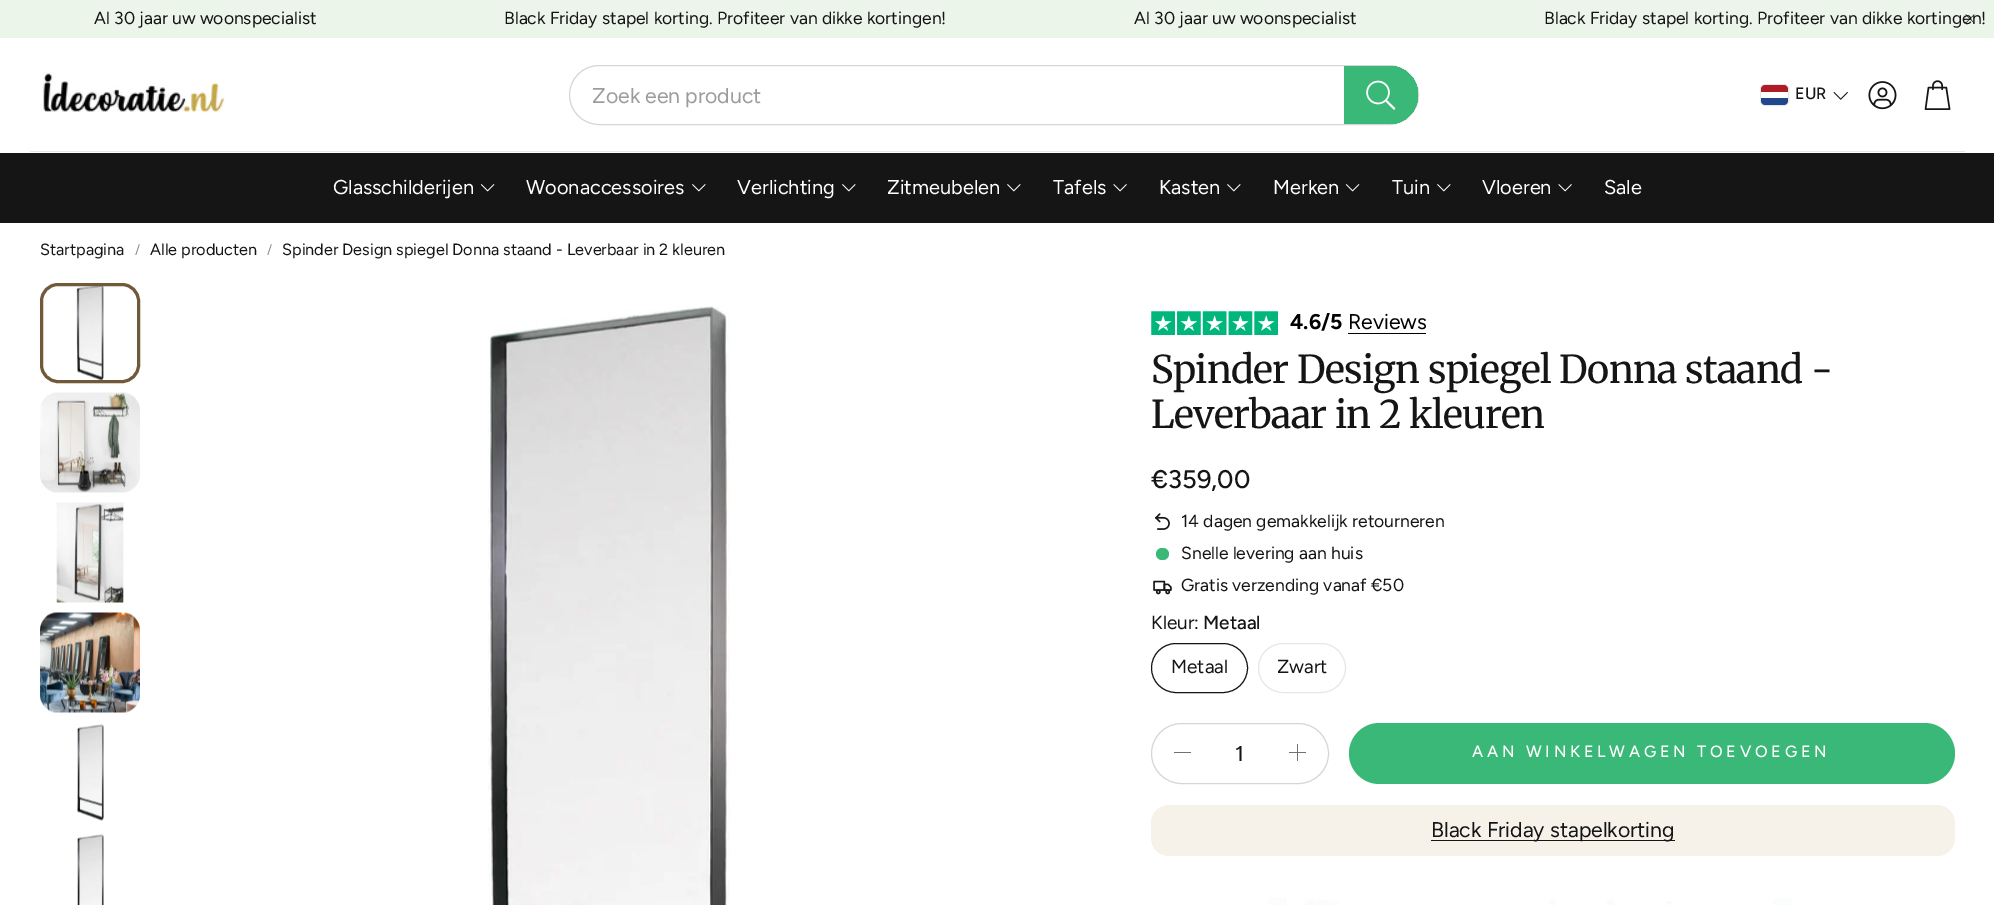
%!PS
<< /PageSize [1994 905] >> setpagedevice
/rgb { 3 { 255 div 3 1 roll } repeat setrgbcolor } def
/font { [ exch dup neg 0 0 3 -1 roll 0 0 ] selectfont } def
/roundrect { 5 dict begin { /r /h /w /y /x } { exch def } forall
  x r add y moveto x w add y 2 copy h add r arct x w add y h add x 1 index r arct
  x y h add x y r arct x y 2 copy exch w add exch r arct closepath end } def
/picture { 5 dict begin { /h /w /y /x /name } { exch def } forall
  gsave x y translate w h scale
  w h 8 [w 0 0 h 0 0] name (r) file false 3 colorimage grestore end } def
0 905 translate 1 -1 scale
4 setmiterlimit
255 255 255 rgb
0 0 1994 905 rectfill
236 245 233 rgb
0 0 1994 38 rectfill
(img/2.rgb) 40 71 187 42 picture
214 214 214 rgb
569.5 65.5 849 59 29.5 roundrect stroke
gsave
570 66 848 58 29 roundrect clip newpath
58 184 119 rgb
1344 65 moveto 1389 65 lineto 1405.5 65 1419 78.5 1419 95 curveto 1419 111.5 1405.5 125 1389 125 curveto 1344 125 lineto closepath fill
grestore
(img/3.rgb) 1366 80 30 30 picture
231 231 231 rgb
1760.5 84.5 28 21 4.5 roundrect stroke
255 255 255 rgb
1761 85 27 20 4 roundrect fill
33 70 139 rgb
1761 98 moveto 1788 98 lineto 1788 101 lineto 1788 103 1786 105 1784 105 curveto 1765 105 lineto 1763 105 1761 103 1761 101 curveto closepath fill
174 28 40 rgb
1765 85 moveto 1784 85 lineto 1786 85 1788 87 1788 89 curveto 1788 92 lineto 1761 92 lineto 1761 89 lineto 1761 87 1763 85 1765 85 curveto closepath fill
(img/4.rgb) 1833 92 15 8 picture
(img/5.rgb) 1868 81 29 29 picture
(img/6.rgb) 1924 80 27 30 picture
231 231 231 rgb
30 151 1935 1 rectfill
21 21 21 rgb
0 153 1994 70 rectfill
(img/7.rgb) 480 184 15 8 picture
(img/8.rgb) 692 184 14 8 picture
(img/8.rgb) 842 184 14 8 picture
(img/8.rgb) 1007 184 14 8 picture
(img/9.rgb) 1113 184 14 8 picture
(img/8.rgb) 1227 184 14 8 picture
(img/7.rgb) 1345 184 15 8 picture
(img/8.rgb) 1437 184 14 8 picture
(img/9.rgb) 1558 184 14 8 picture
(img/10.rgb) 76 286 28 94 picture
113 89 57 rgb
3 setlinewidth
41.5 284.5 97 97 16.5 roundrect stroke
(img/11.rgb) 40 392 100 101 picture
(img/12.rgb) 56 502 68 101 picture
(img/13.rgb) 40 612 100 101 picture
(img/14.rgb) 77 724 27 97 picture
(img/15.rgb) 77 834 27 71 picture
(img/16.rgb) 488 306 242 599 picture
(img/17.rgb) 1151 311 127 24 picture
0 0 0 rgb
1348 333 78 1 rectfill
(img/18.rgb) 1155 513 15 17 picture
58 184 119 rgb
1156 548 13 12 6 roundrect fill
(img/19.rgb) 1153 580 19 15 picture
21 21 21 rgb
1 setlinewidth
1151.5 643.5 96 49 24.5 roundrect stroke
231 231 231 rgb
1258.5 643.5 87 49 24.5 roundrect stroke
214 214 214 rgb
1151.5 723.5 177 60 30 roundrect stroke
113 113 113 rgb
1174 752 17 1 0.5 roundrect fill
1289 752 17 1 0.5 roundrect fill
1297 744 1 17 0.5 roundrect fill
58 184 119 rgb
1349 723 606 61 30.5 roundrect fill
246 242 234 rgb
1151 805 804 51 18 roundrect fill
21 21 21 rgb
1431 840 244 1 rectfill
(img/20.rgb) 1267 897 20 8 picture
(img/21.rgb) 1305 900 34 5 picture
(img/22.rgb) 1549 899 7 6 picture
(img/23.rgb) 1606 899 8 6 picture
(img/24.rgb) 1666 901 7 4 picture
(img/25.rgb) 1773 898 19 7 picture
/Figtree-Regular 17.5 font
[
  [(Al 30 jaar uw woonspecialist) 94 24]
  [(Black Friday stapel korting. Profiteer van dikke kortingen!) 504 24]
  [(Al 30 jaar uw woonspecialist) 1134 24]
  [(Black Friday stapel korting. Profiteer van dikke kortingen!) 1544 24]
] { aload pop moveto show } forall
(img/1.rgb) 1965 14 10 10 picture
/Figtree-Regular 21.25 font
156 156 156 rgb
592 103 moveto (Zoek een product) show
/Figtree-Medium 16.25 font
21 21 21 rgb
1795 99 moveto (EUR) show
/Figtree-Regular 20 font
255 255 255 rgb
[
  [(Glasschilderijen) 333 194]
  [(Woonaccessoires) 526 194]
  [(Verlichting) 737 194]
  [(Zitmeubelen) 887 194]
  [(Tafels) 1053 194]
  [(Kasten) 1159 194]
  [(Merken) 1273 194]
  [(Tuin) 1392 194]
  [(Vloeren) 1482 194]
  [(Sale) 1604 194]
] { aload pop moveto show } forall
/Figtree-Regular 16.25 font
21 21 21 rgb
40 255 moveto (Startpagina) show
/Figtree-Regular 13 font
138 138 138 rgb
135 254 moveto (/) show
/Figtree-Regular 16.25 font
21 21 21 rgb
150 255 moveto (Alle producten) show
/Figtree-Regular 13 font
138 138 138 rgb
267 254 moveto (/) show
/Figtree-Regular 16.25 font
21 21 21 rgb
282 255 moveto (Spinder Design spiegel Donna staand - Leverbaar in 2 kleuren) show
/Figtree-Bold 21.25 font
0 0 0 rgb
1290 329 moveto (4.6/5) show
/Figtree-Regular 21.25 font
1348 329 moveto (Reviews) show
/Merriweather-Regular 38.25 font
21 21 21 rgb
1151 383 moveto -0.6 0 (Spinder Design spiegel Donna staand -) ashow
1151 428 moveto -0.6 0 (Leverbaar in 2 kleuren) ashow
/Figtree-Medium 25.5 font
1151 488 moveto (€359,00) show
/Figtree-Regular 17.5 font
[
  [(14 dagen gemakkelijk retourneren) 1181 527]
  [(Snelle levering aan huis) 1181 559]
  [(Gratis verzending vanaf €50) 1181 591]
] { aload pop moveto show } forall
/Figtree-Regular 19 font
1151 629 moveto (Kleur:) show
/Figtree-Medium 19 font
1203 629 moveto (Metaal) show
/Figtree-Regular 19 font
1171 673 moveto (Metaal) show
1277 673 moveto (Zwart) show
/Figtree-Regular 21.25 font
1235 761 moveto (1) show
/Figtree-Medium 16.25 font
255 255 255 rgb
1472 757 moveto 3.75 0 (AAN WINKELWAGEN TOEVOEGEN) ashow
/Figtree-Regular 21.25 font
21 21 21 rgb
1431 837 moveto (Black Friday stapelkorting) show
showpage
